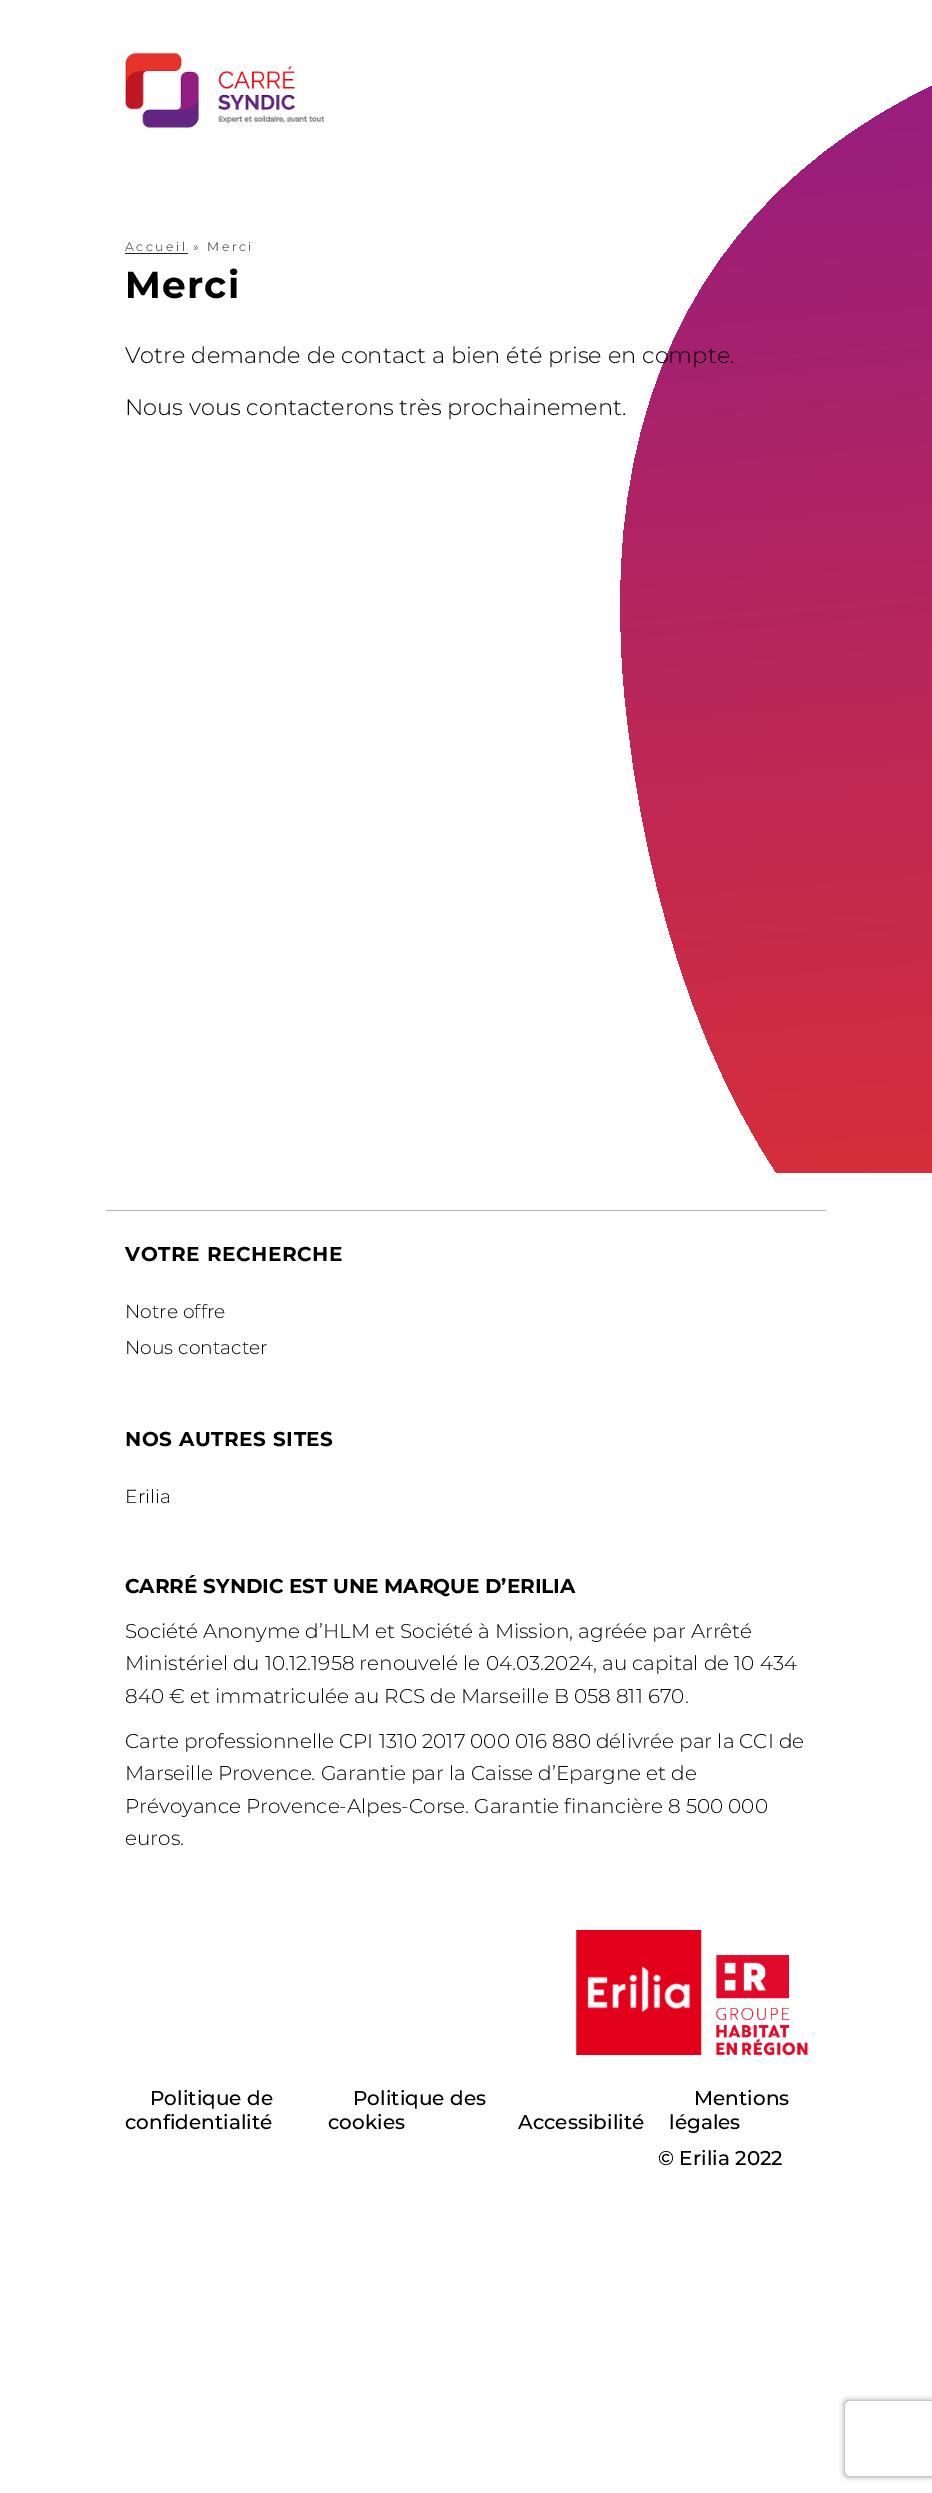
%!PS
<< /PageSize [932 2493] /PageUsesTransparency true >> setpagedevice
/rgb { 3 { 255 div 3 1 roll } repeat setrgbcolor } def
/font { [ exch dup neg 0 0 3 -1 roll 0 0 ] selectfont } def
/alpha { dup .setfillconstantalpha .setstrokeconstantalpha } def
/roundrect { 5 dict begin { /r /h /w /y /x } { exch def } forall
  x r add y moveto x w add y 2 copy h add r arct x w add y h add x 1 index r arct
  x y h add x y r arct x y 2 copy exch w add exch r arct closepath end } def
/shadow { 12 dict begin { /a /b /q /h /w /y /x } { exch def } forall gsave /was 0 def
  9 -2 -9 { dup b mul 4 div /e exch def 1 sub .425 mul 2.718 exch exp 1 add a .99 .min exch div /now exch def
    1 1 now sub 1 was sub div sub alpha /was now def
    w h .min e 2 mul add 0 gt { x e sub y e sub w e 2 mul add h e 2 mul add
      q e add b .6 mul add w h .min 2 div e add .min 0 .max roundrect fill } if } for grestore end } def
/picture { 5 dict begin { /h /w /y /x /name } { exch def } forall
  gsave x y translate w h scale
  w h 8 [w 0 0 h 0 0] name (r) file false 3 colorimage grestore end } def
0 .pushpdf14devicefilter
0 2493 translate 1 -1 scale
4 setmiterlimit
255 255 255 rgb
0 0 932 2493 rectfill
(img/1.rgb) 125 52 200 76 picture
gsave 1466 1360 moveto 906 1568 663 1123 624 686 curveto 586 250 853 34 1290 -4 curveto 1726 -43 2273 -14 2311 423 curveto 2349 860 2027 1152 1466 1360 curveto closepath clip newpath
<< /ShadingType 2 /ColorSpace /DeviceRGB /Coords [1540 1386 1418 -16] /Extend [true true] /Function << /FunctionType 2 /Domain [0 1] /C0 [0.902 0.2 0.165] /C1 [0.58 0.11 0.51] /N 1 >> >> shfill grestore
[
  [125 253 63 1 34 34 34]
  [776 1173 156 161 255 255 255]
  [106 1210 720 1 178 178 178]
] { aload pop rgb rectfill } forall
(img/2.rgb) 576 1930 126 125 picture
(img/3.rgb) 716 1955 92 100 picture
gsave
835 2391 moveto 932 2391 lineto 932 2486 lineto 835 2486 lineto closepath 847.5 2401 moveto 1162.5 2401 lineto 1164 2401 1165 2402 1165 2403.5 curveto 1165 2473.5 lineto 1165 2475 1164 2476 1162.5 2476 curveto 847.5 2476 lineto 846 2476 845 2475 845 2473.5 curveto 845 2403.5 lineto 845 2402 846 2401 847.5 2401 curveto closepath eoclip newpath
128 128 128 rgb
845 2401 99 75 2.5 3 1 shadow
grestore
/Montserrat-Light 12.5 font
34 34 34 rgb
125 251 moveto 2.5 0 (Accueil » Merci) ashow
/Montserrat-Bold 37.5 font
0 0 0 rgb
125 298 moveto 1.25 0 (Merci) ashow
/Montserrat-Light 22.5 font
125 363 moveto (Votre demande de contact a bien été prise en compte.) show
125 415 moveto (Nous vous contacterons très prochainement.) show
/Montserrat-Bold 20 font
125 1261 moveto 0.6 0 (VOTRE RECHERCHE) ashow
/Montserrat-Light 18.75 font
125 1318 moveto (Notre offre) show
125 1354 moveto (Nous contacter) show
/Montserrat-Bold 20 font
125 1446 moveto 0.6 0 (NOS AUTRES SITES) ashow
/Montserrat-Light 18.75 font
125 1503 moveto (Erilia) show
/Montserrat-Bold 20 font
125 1593 moveto (CARRÉ SYNDIC EST UNE MARQUE D’ERILIA) show
/Montserrat-Light 20 font
[
  [(Société Anonyme d’HLM et Société à Mission, agréée par Arrêté) 125 1638]
  [(Ministériel du 10.12.1958 renouvelé le 04.03.2024, au capital de 10 434) 125 1670]
  [(840 € et immatriculée au RCS de Marseille B 058 811 670.) 125 1703]
  [(Carte professionnelle CPI 1310 2017 000 016 880 délivrée par la CCI de) 125 1748]
  [(Marseille Provence. Garantie par la Caisse d’Epargne et de) 125 1780]
  [(Prévoyance Provence-Alpes-Corse. Garantie financière 8 500 000) 125 1813]
  [(euros.) 125 1845]
] { aload pop moveto show } forall
/Montserrat-Medium 20 font
[
  [(Politique de) 150 2105]
  [(confidentialité) 125 2129]
  [(Politique des) 353 2105]
  [(cookies) 328 2129]
  [(Accessibilité) 518 2129]
  [(Mentions) 694 2105]
  [(légales) 669 2129]
  [(© Erilia 2022) 658 2165]
] { aload pop moveto show } forall
.poppdf14devicefilter showpage
